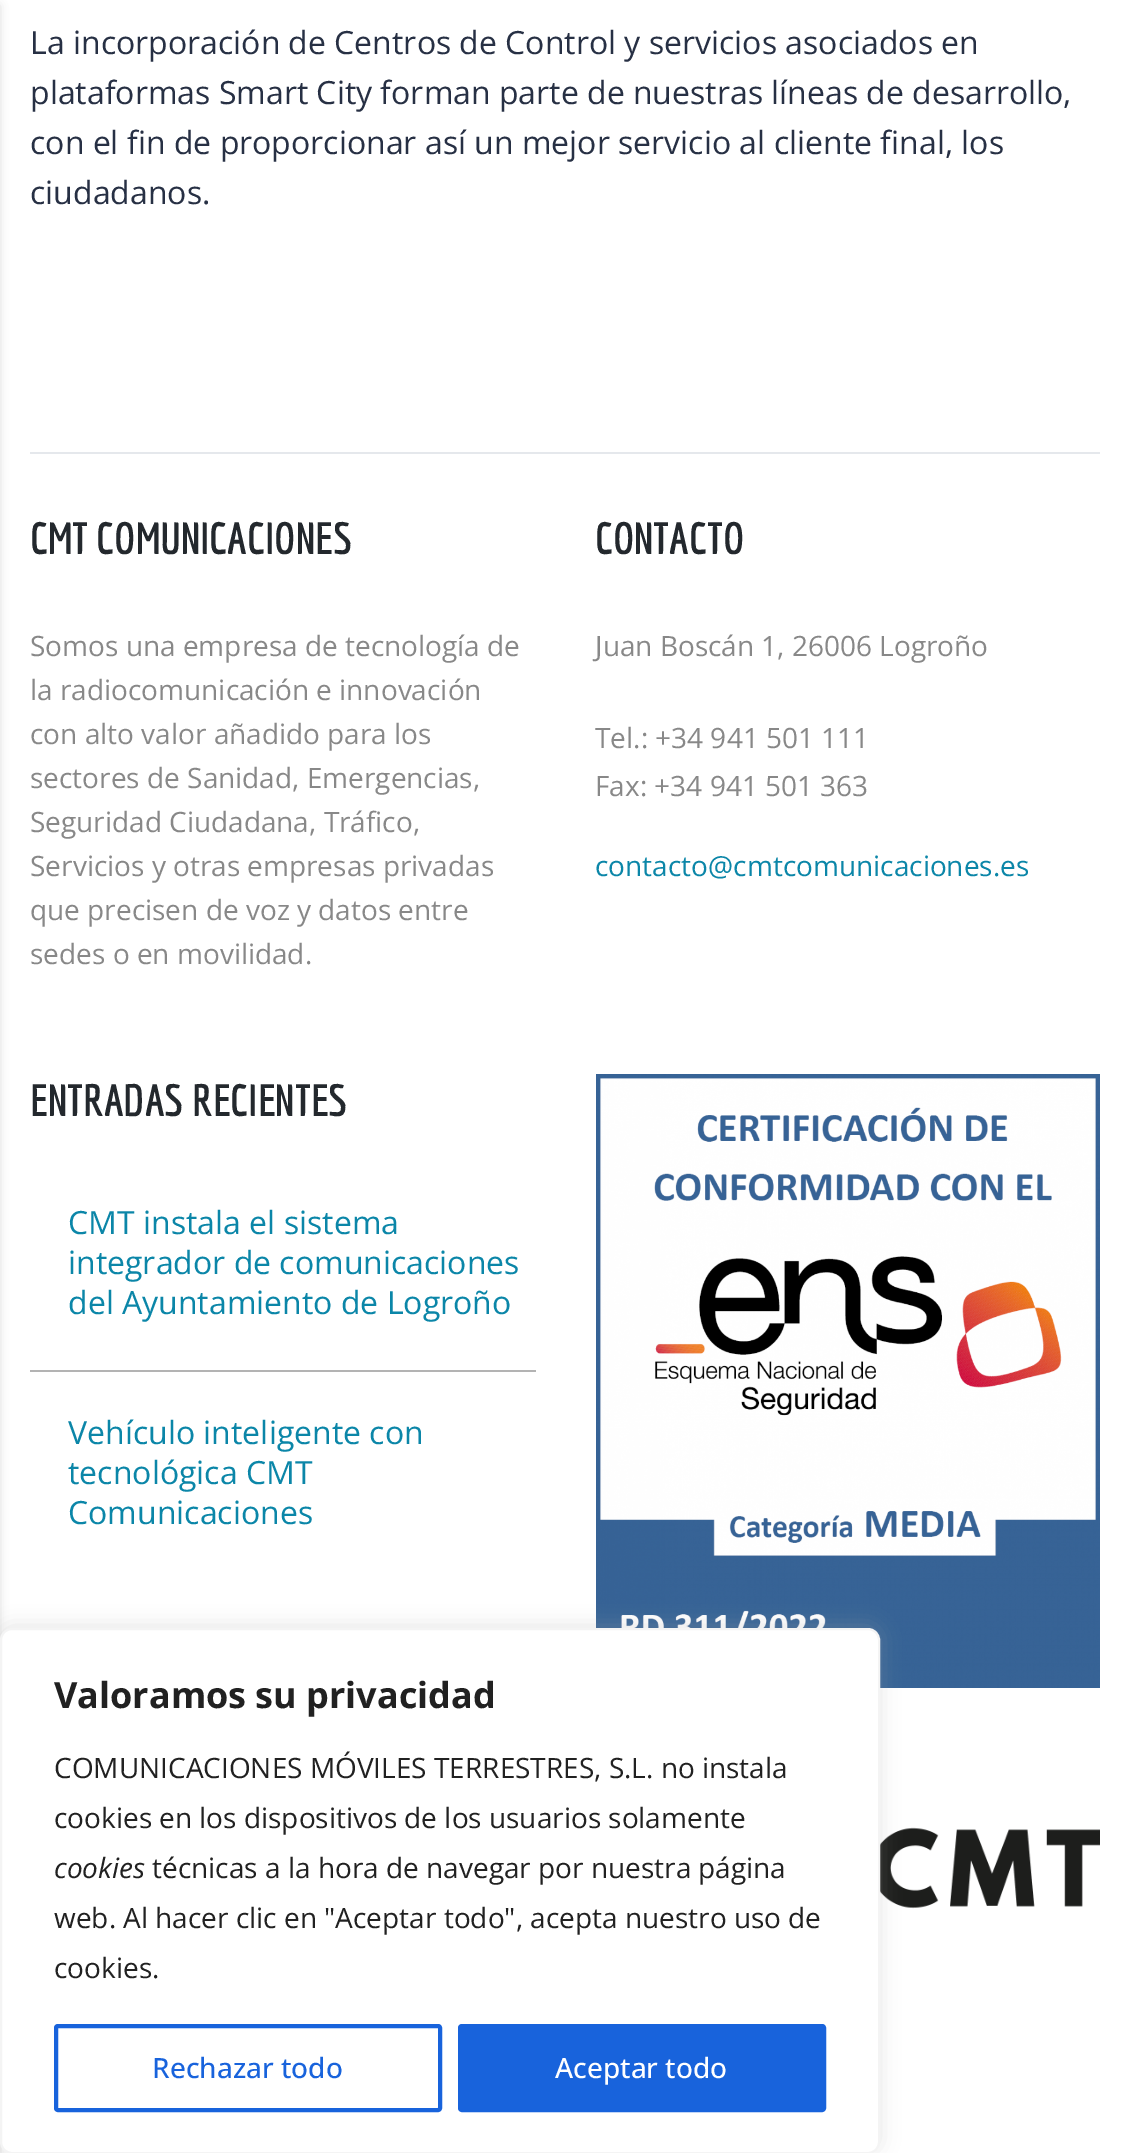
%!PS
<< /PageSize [1130 2153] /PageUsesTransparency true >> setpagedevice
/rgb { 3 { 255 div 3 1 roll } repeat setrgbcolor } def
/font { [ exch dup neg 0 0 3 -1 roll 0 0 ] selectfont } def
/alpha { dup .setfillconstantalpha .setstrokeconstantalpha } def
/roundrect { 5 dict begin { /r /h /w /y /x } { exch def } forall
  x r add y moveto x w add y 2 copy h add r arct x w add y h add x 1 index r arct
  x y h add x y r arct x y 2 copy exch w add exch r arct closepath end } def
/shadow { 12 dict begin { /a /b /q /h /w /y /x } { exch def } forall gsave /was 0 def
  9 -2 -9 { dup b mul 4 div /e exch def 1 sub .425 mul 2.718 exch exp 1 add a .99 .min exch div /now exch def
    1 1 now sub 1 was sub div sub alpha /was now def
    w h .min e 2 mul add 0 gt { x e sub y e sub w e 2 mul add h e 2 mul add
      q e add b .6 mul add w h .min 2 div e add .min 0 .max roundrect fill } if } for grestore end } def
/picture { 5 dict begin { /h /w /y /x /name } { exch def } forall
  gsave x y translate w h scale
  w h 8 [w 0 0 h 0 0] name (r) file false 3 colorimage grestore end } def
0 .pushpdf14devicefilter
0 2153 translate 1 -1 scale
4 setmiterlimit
255 255 255 rgb
0 0 1130 2153 rectfill
0 0 0 rgb
-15 6 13 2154 0 5 0.2 shadow
229 232 236 rgb
30 452 1070 2 rectfill
179 179 179 rgb
30 1370 506 2 rectfill
(img/1.rgb) 596 1074 504 614 picture
(img/2.rgb) 880 1827 220 82 picture
172 171 171 rgb
0 1626 880 526 12 10 0.3 shadow
255 255 255 rgb
1 1629 878 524 11 roundrect gsave fill grestore
244 244 244 rgb
2 setlinewidth
stroke
24 99 220 rgb
4 setlinewidth
56 2026 384 84 2 roundrect stroke
460 2026 364 84 2 roundrect gsave fill grestore
stroke
/OpenSans-Regular 32 font
39 48 68 rgb
[
  [(La incorporación de Centros de Control y servicios asociados en) 30 54]
  [(plataformas Smart City forman parte de nuestras líneas de desarrollo,) 30 104]
  [(con el fin de proporcionar así un mejor servicio al cliente final, los) 30 154]
  [(ciudadanos.) 30 204]
] { aload pop moveto show } forall
/Economica-Bold 44 font
35 40 45 rgb
30 554 moveto (CMT COMUNICACIONES) show
/OpenSans-Regular 28 font
136 136 136 rgb
[
  [(Somos una empresa de tecnología de) 30 656]
  [(la radiocomunicación e innovación) 30 700]
  [(con alto valor añadido para los) 30 744]
  [(sectores de Sanidad, Emergencias,) 30 788]
  [(Seguridad Ciudadana, Tráfico,) 30 832]
  [(Servicios y otras empresas privadas) 30 876]
  [(que precisen de voz y datos entre) 30 920]
  [(sedes o en movilidad.) 30 964]
] { aload pop moveto show } forall
/Economica-Bold 44 font
35 40 45 rgb
595 554 moveto (CONTACTO) show
/OpenSans-Regular 28 font
136 136 136 rgb
[
  [(Juan Boscán 1, 26006 Logroño) 595 656]
  [(Tel.: +34 941 501 111) 595 748]
  [(Fax: +34 941 501 363) 595 796]
] { aload pop moveto show } forall
11 134 168 rgb
595 876 moveto (contacto@cmtcomunicaciones.es) show
/Economica-Bold 44 font
35 40 45 rgb
30 1116 moveto (ENTRADAS RECIENTES) show
/OpenSans-Regular 32 font
11 134 168 rgb
[
  [(CMT instala el sistema) 68 1234]
  [(integrador de comunicaciones) 68 1274]
  [(del Ayuntamiento de Logroño) 68 1314]
  [(Vehículo inteligente con) 68 1444]
  [(tecnológica CMT) 68 1484]
  [(Comunicaciones) 68 1524]
] { aload pop moveto show } forall
/OpenSans-Bold 36 font
33 33 33 rgb
54 1708 moveto (Valoramos su privacidad) show
/OpenSans-Regular 28 font
54 1778 moveto (COMUNICACIONES MÓVILES TERRESTRES, S.L. no instala) show
54 1828 moveto (cookies en los dispositivos de los usuarios solamente) show
/OpenSans-Italic 28 font
54 1878 moveto (cookies) show
/OpenSans-Regular 28 font
[
  [(técnicas a la hora de navegar por nuestra página) 152 1878]
  [(web. Al hacer clic en "Aceptar todo", acepta nuestro uso de) 54 1928]
  [(cookies.) 54 1978]
] { aload pop moveto show } forall
/OpenSans-Medium 28 font
24 99 220 rgb
152 2078 moveto (Rechazar todo) show
255 255 255 rgb
555 2078 moveto (Aceptar todo) show
.poppdf14devicefilter showpage
